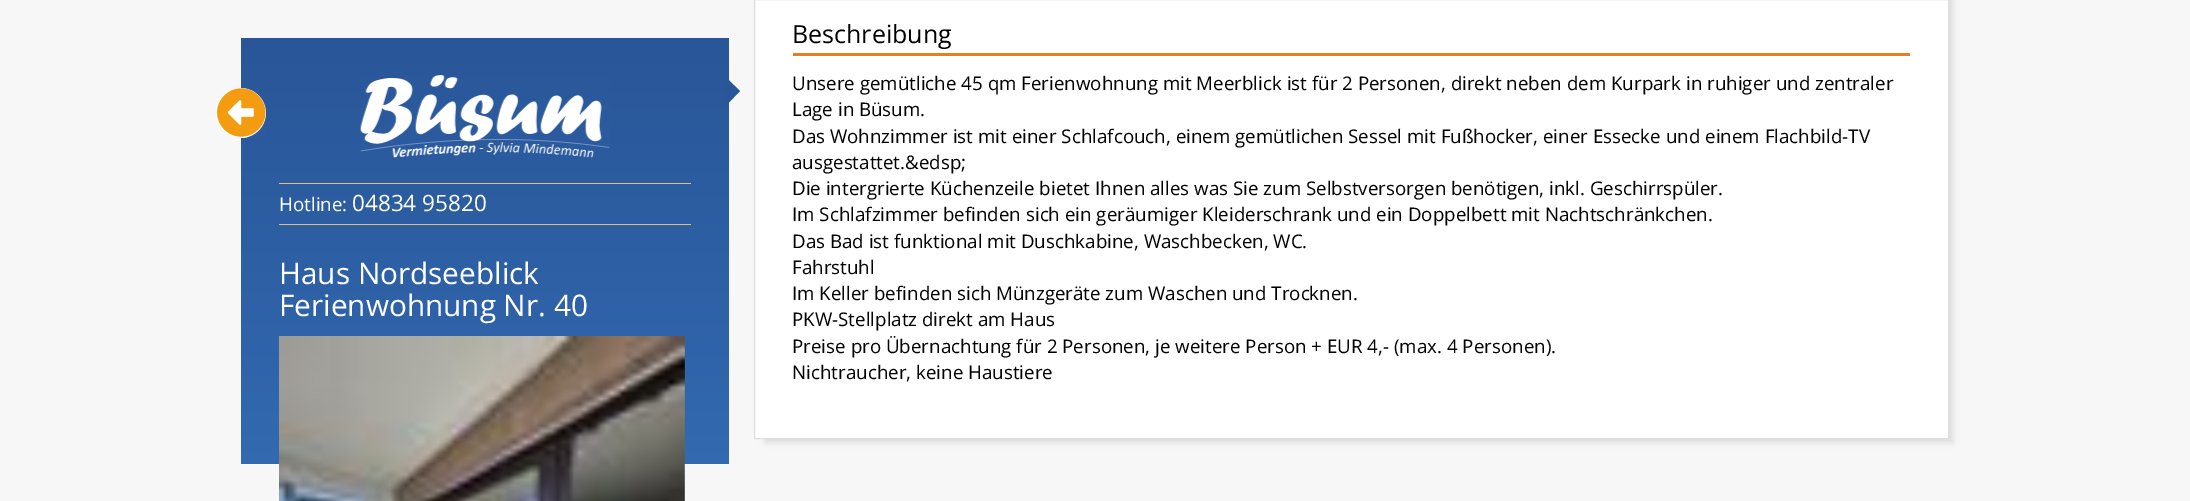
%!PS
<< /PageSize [2190 501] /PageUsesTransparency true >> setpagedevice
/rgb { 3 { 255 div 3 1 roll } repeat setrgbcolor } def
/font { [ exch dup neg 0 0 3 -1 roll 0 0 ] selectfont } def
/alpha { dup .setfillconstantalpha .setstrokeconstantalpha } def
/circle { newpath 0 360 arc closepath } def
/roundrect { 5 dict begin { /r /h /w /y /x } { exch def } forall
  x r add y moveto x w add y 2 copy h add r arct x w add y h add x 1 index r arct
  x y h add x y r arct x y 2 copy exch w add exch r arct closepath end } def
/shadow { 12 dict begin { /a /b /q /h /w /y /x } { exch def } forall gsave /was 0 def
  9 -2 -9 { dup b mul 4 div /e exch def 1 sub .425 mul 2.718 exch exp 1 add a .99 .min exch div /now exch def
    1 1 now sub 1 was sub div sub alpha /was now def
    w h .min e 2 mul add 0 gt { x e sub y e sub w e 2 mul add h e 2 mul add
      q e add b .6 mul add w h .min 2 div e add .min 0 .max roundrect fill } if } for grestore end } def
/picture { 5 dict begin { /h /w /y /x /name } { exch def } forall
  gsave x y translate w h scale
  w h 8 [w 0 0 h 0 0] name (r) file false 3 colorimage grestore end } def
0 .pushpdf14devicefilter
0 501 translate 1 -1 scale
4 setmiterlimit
247 247 248 rgb
0 0 2190 501 rectfill
gsave 241 38 moveto 729 38 lineto 729 464 lineto 241 464 lineto closepath clip newpath
<< /ShadingType 2 /ColorSpace /DeviceRGB /Coords [485 37 485 464] /Extend [true true] /Function << /FunctionType 3 /Domain [0 1] /Functions [<< /FunctionType 2 /Domain [0 1] /C0 [0.161 0.337 0.6] /C1 [0.161 0.337 0.6] /N 1 >> << /FunctionType 2 /Domain [0 1] /C0 [0.161 0.337 0.6] /C1 [0.196 0.412 0.686] /N 1 >> << /FunctionType 2 /Domain [0 1] /C0 [0.196 0.412 0.686] /C1 [0.196 0.412 0.686] /N 1 >>] /Bounds [0.02 0.99] /Encode [0 1 0 1 0 1] >> >> shfill grestore
255 255 255 rgb
241 113 25 circle fill
(img/1.rgb) 217 88 49 49 picture
(img/2.rgb) 360 75 250 83 picture
41 86 153 rgb
727.5 104 moveto 727.5 79 lineto 740 91 lineto closepath fill
227 189 126 rgb
279 183 412 1 rectfill
279 224 412 1 rectfill
(img/3.rgb) 279 336 406 165 picture
0 0 0 rgb
765 -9 1188 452 0 3 0.1 shadow
255 255 255 rgb
754.5 -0.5 moveto 1948.5 -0.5 lineto 1948.5 438.5 lineto 754.5 438.5 lineto closepath gsave fill grestore
221 221 221 rgb
stroke
230 127 35 rgb
793 53 1117 3 rectfill
/OpenSans-Regular 18.75 font
255 255 255 rgb
279 211 moveto (Hotline:) show
/OpenSans-Regular 22.5 font
352 211 moveto (04834 95820) show
/OpenSans-Regular 29.75 font
279 284 moveto (Haus Nordseeblick) show
279 316 moveto (Ferienwohnung Nr. 40) show
/OpenSans-Regular 25 font
0 0 0 rgb
792 43 moveto (Beschreibung) show
/OpenSans-Regular 18.75 font
[
  [(Unsere gemütliche 45 qm Ferienwohnung mit Meerblick ist für 2 Personen, direkt neben dem Kurpark in ruhiger und zentraler) 792 90]
  [(Lage in Büsum.) 792 116]
  [(Das Wohnzimmer ist mit einer Schlafcouch, einem gemütlichen Sessel mit Fußhocker, einer Essecke und einem Flachbild-TV) 792 143]
  [(ausgestattet.&edsp;) 792 169]
  [(Die intergrierte Küchenzeile bietet Ihnen alles was Sie zum Selbstversorgen benötigen, inkl. Geschirrspüler.) 792 195]
  [(Im Schlafzimmer befinden sich ein geräumiger Kleiderschrank und ein Doppelbett mit Nachtschränkchen.) 792 221]
  [(Das Bad ist funktional mit Duschkabine, Waschbecken, WC.) 792 248]
  [(Fahrstuhl) 792 274]
  [(Im Keller befinden sich Münzgeräte zum Waschen und Trocknen.) 792 300]
  [(PKW-Stellplatz direkt am Haus) 792 326]
  [(Preise pro Übernachtung für 2 Personen, je weitere Person + EUR 4,- \(max. 4 Personen\).) 792 353]
  [(Nichtraucher, keine Haustiere) 792 379]
] { aload pop moveto show } forall
.poppdf14devicefilter showpage
